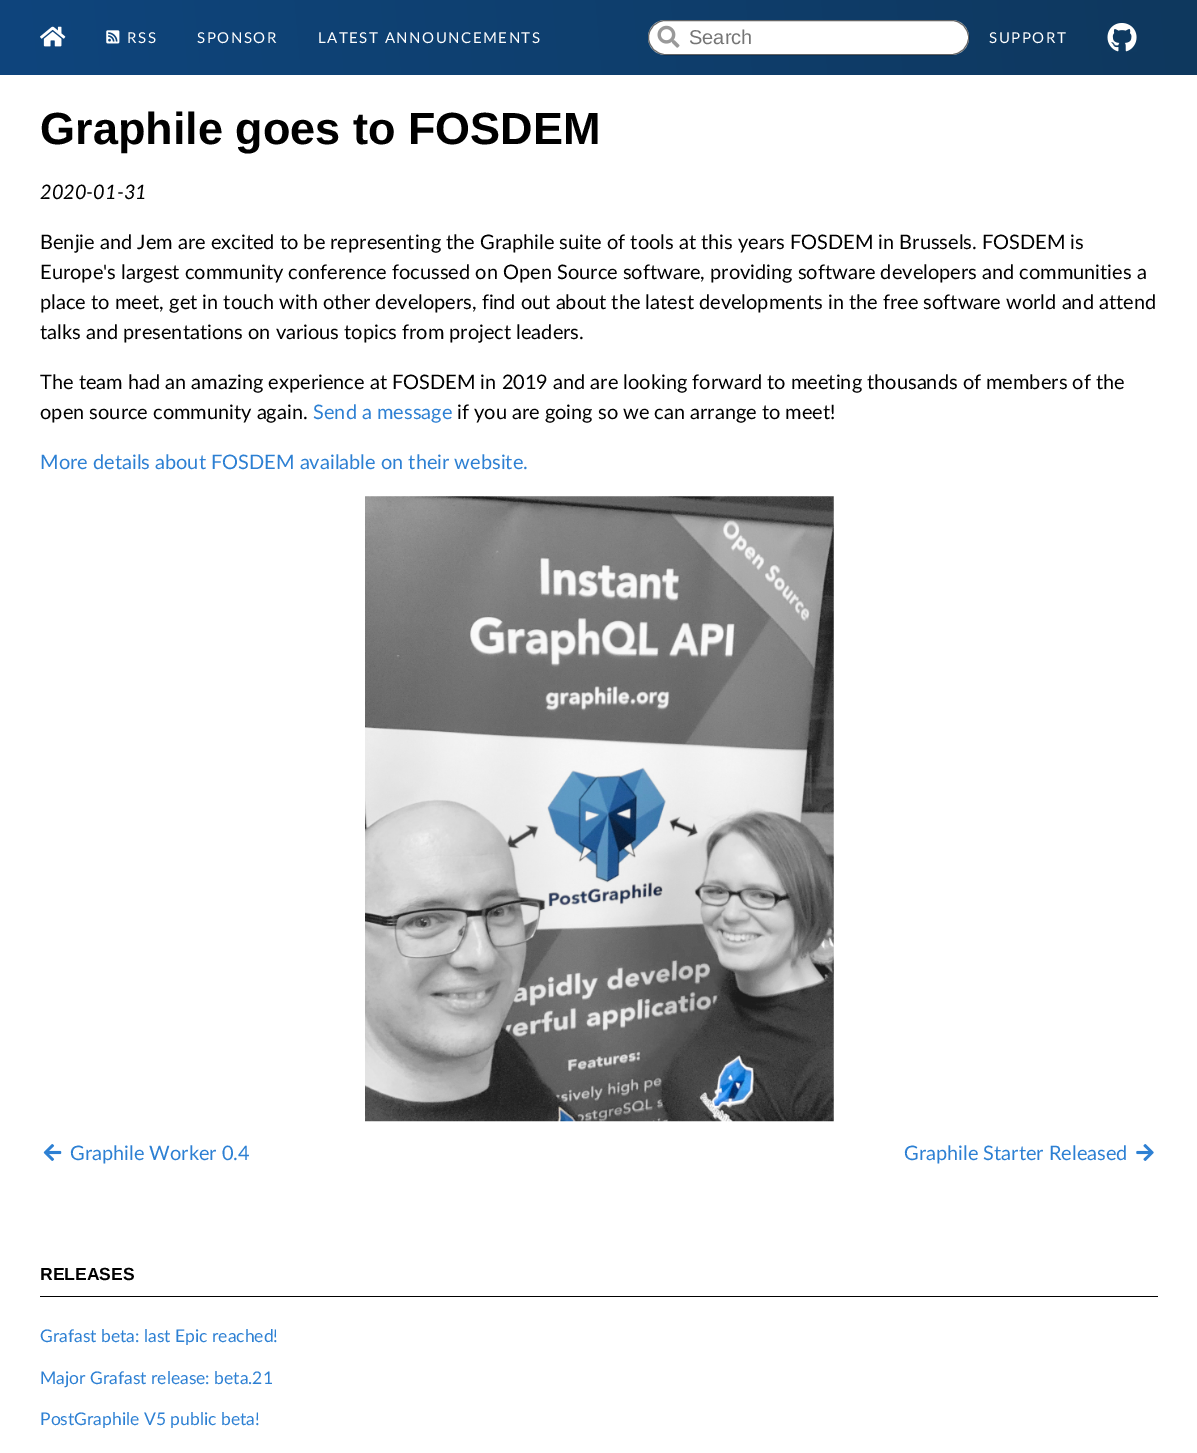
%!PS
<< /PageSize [1197 1453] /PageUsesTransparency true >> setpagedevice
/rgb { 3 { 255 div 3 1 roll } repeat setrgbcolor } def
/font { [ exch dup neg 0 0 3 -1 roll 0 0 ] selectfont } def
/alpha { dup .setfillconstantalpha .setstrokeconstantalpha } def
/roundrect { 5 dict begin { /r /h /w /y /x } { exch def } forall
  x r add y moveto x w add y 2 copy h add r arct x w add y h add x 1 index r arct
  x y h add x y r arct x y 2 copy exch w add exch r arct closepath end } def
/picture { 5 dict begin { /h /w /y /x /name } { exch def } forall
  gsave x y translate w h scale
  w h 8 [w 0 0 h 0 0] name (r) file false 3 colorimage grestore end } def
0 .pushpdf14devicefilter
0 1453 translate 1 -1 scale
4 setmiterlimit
255 255 255 rgb
0 0 1197 1453 rectfill
gsave 0 0 moveto 1197 0 lineto 1197 75 lineto 0 75 lineto closepath clip newpath
<< /ShadingType 2 /ColorSpace /DeviceRGB /Coords [1.3 90 1196 -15] /Extend [true true] /Function << /FunctionType 2 /Domain [0 1] /C0 [0.055 0.271 0.49] /C1 [0.055 0.22 0.369] /N 1 >> >> shfill grestore
(img/1.rgb) 40 26 26 21 picture
(img/2.rgb) 106 30 14 14 picture
648 20 321 35 17.5 roundrect fill
0.6 alpha
0 0 0 rgb
648.5 20.5 320 34 17 roundrect stroke
1 alpha
(img/3.rgb) 657 25 23 23 picture
(img/4.rgb) 1107 23 30 29 picture
(img/5.rgb) 365 496 469 626 picture
(img/6.rgb) 43 1144 19 17 picture
(img/7.rgb) 1136 1144 18 17 picture
40 1296 1118 1 rectfill
/Lato-Regular 15 font
255 255 255 rgb
127 43 moveto 1.5 0 (RSS) ashow
197 43 moveto 1.5 0 (SPONSOR) ashow
318 43 moveto 1.5 0 (LATEST ANNOUNCEMENTS) ashow
/LiberationSans-Regular 20 font
117 117 117 rgb
689 44 moveto (Search) show
/Lato-Regular 15 font
255 255 255 rgb
989 43 moveto 1.5 0 (SUPPORT) ashow
/LiberationSans-Bold 45 font
0 0 0 rgb
40 144 moveto (Graphile goes to FOSDEM) show
/Lato-Italic 20 font
40 199 moveto (2020-01-31) show
/Lato-Regular 20 font
[
  [(Benjie and Jem are excited to be representing the Graphile suite of tools at this years FOSDEM in Brussels. FOSDEM is) 40 249]
  [(Europe's largest community conference focussed on Open Source software, providing software developers and communities a) 40 279]
  [(place to meet, get in touch with other developers, find out about the latest developments in the free software world and attend) 40 309]
  [(talks and presentations on various topics from project leaders.) 40 339]
  [(The team had an amazing experience at FOSDEM in 2019 and are looking forward to meeting thousands of members of the) 40 389]
  [(open source community again.) 40 419]
] { aload pop moveto show } forall
45 128 211 rgb
313 419 moveto (Send a message) show
0 0 0 rgb
457 419 moveto (if you are going so we can arrange to meet!) show
45 128 211 rgb
[
  [(More details about FOSDEM available on their website.) 40 469]
  [(Graphile Worker 0.4) 70 1160]
  [(Graphile Starter Released) 904 1160]
] { aload pop moveto show } forall
/LiberationSans-Bold 17.5 font
0 0 0 rgb
40 1280 moveto (RELEASES) show
/Lato-Regular 17.5 font
45 128 211 rgb
[
  [(Grafast beta: last Epic reached!) 40 1342]
  [(Major Grafast release: beta.21) 40 1384]
  [(PostGraphile V5 public beta!) 40 1425]
] { aload pop moveto show } forall
.poppdf14devicefilter showpage
